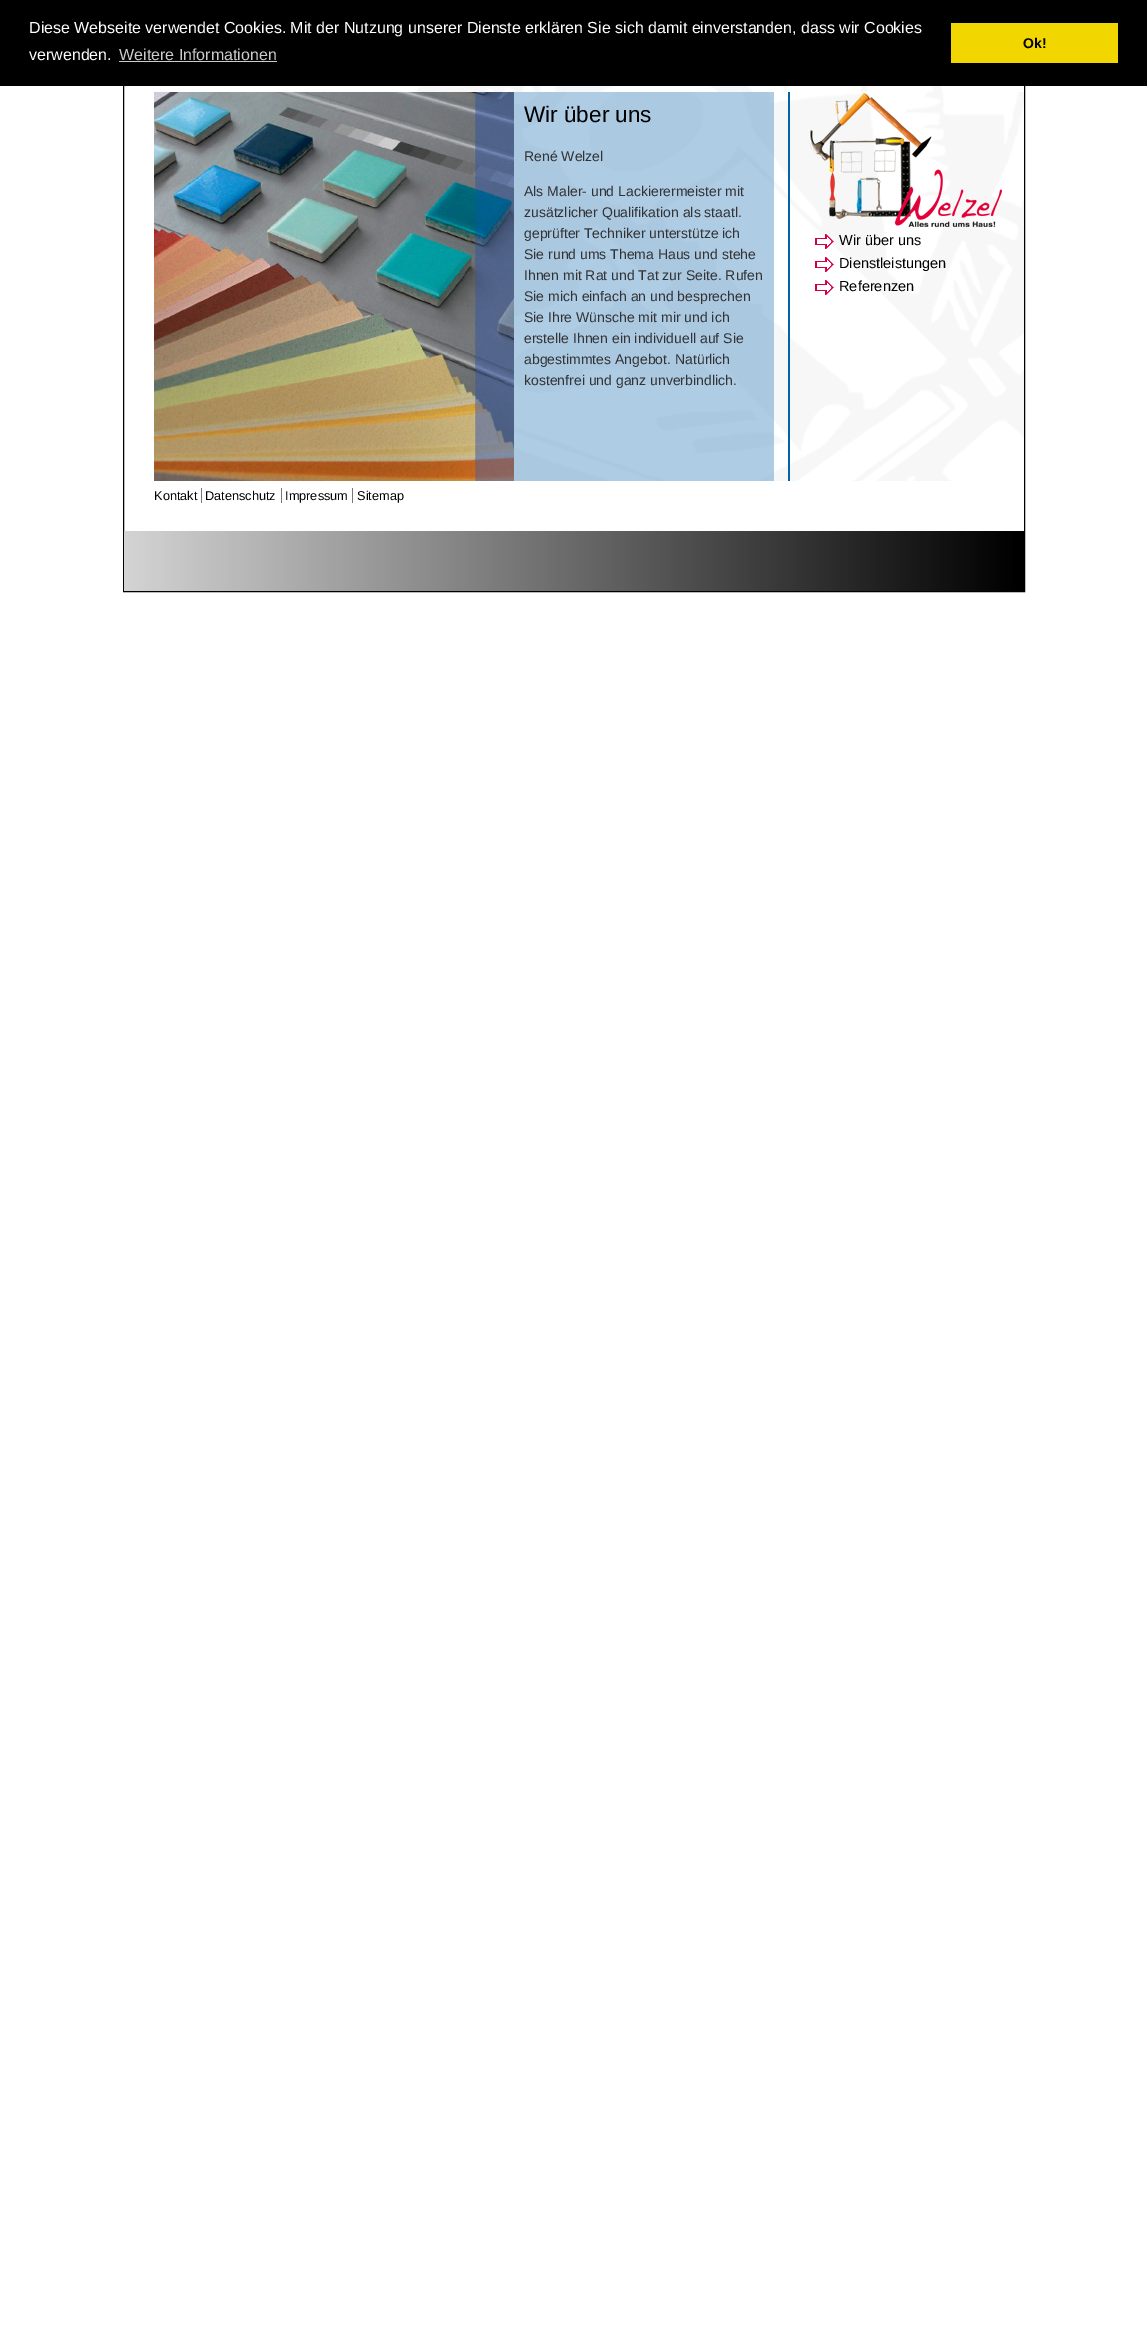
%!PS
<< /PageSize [1147 2346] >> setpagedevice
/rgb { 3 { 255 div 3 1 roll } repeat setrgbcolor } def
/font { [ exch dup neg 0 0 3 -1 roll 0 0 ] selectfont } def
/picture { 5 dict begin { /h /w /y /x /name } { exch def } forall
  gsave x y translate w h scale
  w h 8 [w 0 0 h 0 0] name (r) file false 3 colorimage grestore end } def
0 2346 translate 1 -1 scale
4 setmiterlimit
255 255 255 rgb
0 0 1147 2346 rectfill
(img/1.rgb) 514 92 510 389 picture
0 0 0 rgb
123.5 16.5 901 575 rectstroke
[
  [0 0 1147 86 0 0 0]
  [119 61 158 1 204 204 204]
  [951 23 167 40 241 214 0]
] { aload pop rgb rectfill } forall
(img/2.rgb) 417 86 525 6 picture
(img/3.rgb) 154 92 360 389 picture
(img/4.rgb) 809 93 193 134 picture
(img/5.rgb) 815 234 19 15 picture
(img/6.rgb) 815 257 19 15 picture
(img/6.rgb) 815 280 19 15 picture
[
  [201 488 1 15 119 119 119]
  [281 488 1 15 119 119 119]
  [352 488 1 15 119 119 119]
] { aload pop rgb rectfill } forall
(img/7.rgb) 124 531 900 60 picture
/LiberationSans-Regular 16 font
255 255 255 rgb
29 33 moveto (Diese Webseite verwendet Cookies. Mit der Nutzung unserer Dienste erklären Sie sich damit einverstanden, dass wir Cookies) show
29 60 moveto (verwenden.) show
204 204 204 rgb
119 60 moveto (Weitere Informationen) show
/LiberationSans-Bold 14 font
0 0 0 rgb
1023 48 moveto (Ok!) show
/LiberationSans-Regular 22.5 font
524 122 moveto (Wir über uns) show
/LiberationSans-Regular 14 font
51 51 51 rgb
[
  [(René Welzel) 524 161]
  [(Als Maler- und Lackierermeister mit) 524 196]
  [(zusätzlicher Qualifikation als staatl.) 524 217]
  [(geprüfter Techniker unterstütze ich) 524 238]
  [(Sie rund ums Thema Haus und stehe) 524 259]
  [(Ihnen mit Rat und Tat zur Seite. Rufen) 524 280]
  [(Sie mich einfach an und besprechen) 524 301]
  [(Sie Ihre Wünsche mit mir und ich) 524 322]
  [(erstelle Ihnen ein individuell auf Sie) 524 343]
  [(abgestimmtes Angebot. Natürlich) 524 364]
  [(kostenfrei und ganz unverbindlich.) 524 385]
] { aload pop moveto show } forall
/LiberationSans-Regular 14.5 font
0 0 0 rgb
[
  [(Wir über uns) 839 245]
  [(Dienstleistungen) 839 268]
  [(Referenzen) 839 291]
] { aload pop moveto show } forall
/LiberationSans-Regular 12.75 font
[
  [(Kontakt) 154 500]
  [(Datenschutz) 205 500]
  [(Impressum) 285 500]
  [(Sitemap) 357 500]
] { aload pop moveto show } forall
showpage
